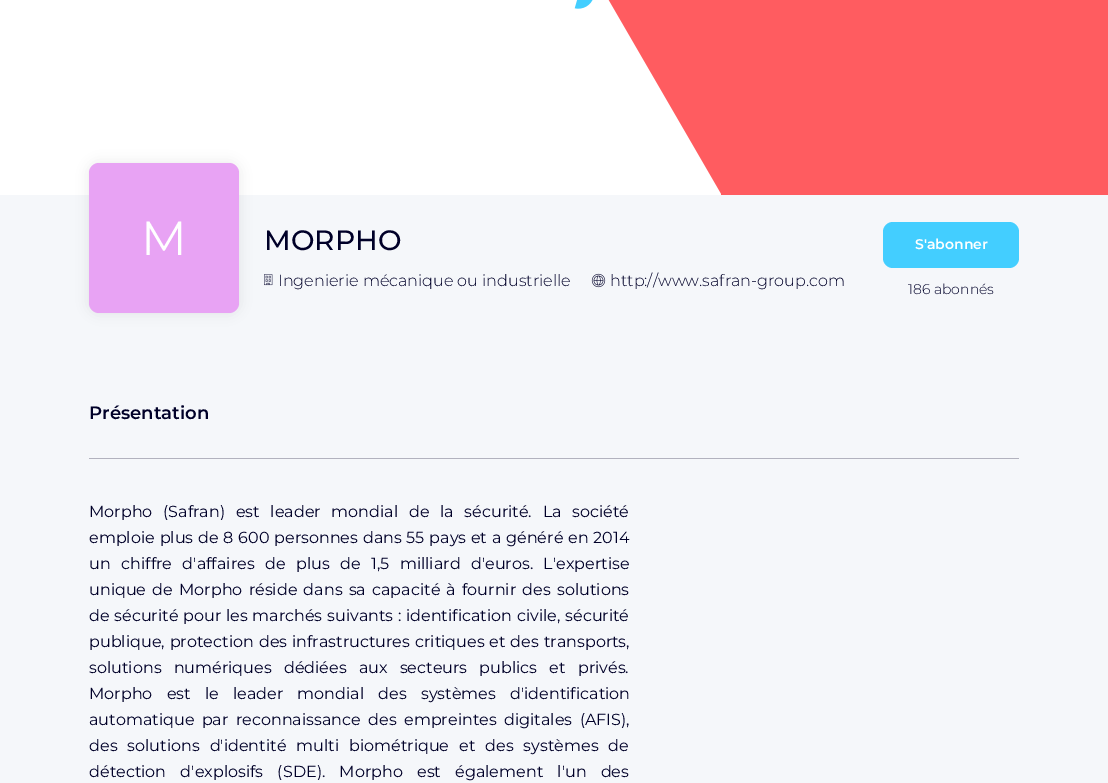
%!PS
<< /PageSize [1108 783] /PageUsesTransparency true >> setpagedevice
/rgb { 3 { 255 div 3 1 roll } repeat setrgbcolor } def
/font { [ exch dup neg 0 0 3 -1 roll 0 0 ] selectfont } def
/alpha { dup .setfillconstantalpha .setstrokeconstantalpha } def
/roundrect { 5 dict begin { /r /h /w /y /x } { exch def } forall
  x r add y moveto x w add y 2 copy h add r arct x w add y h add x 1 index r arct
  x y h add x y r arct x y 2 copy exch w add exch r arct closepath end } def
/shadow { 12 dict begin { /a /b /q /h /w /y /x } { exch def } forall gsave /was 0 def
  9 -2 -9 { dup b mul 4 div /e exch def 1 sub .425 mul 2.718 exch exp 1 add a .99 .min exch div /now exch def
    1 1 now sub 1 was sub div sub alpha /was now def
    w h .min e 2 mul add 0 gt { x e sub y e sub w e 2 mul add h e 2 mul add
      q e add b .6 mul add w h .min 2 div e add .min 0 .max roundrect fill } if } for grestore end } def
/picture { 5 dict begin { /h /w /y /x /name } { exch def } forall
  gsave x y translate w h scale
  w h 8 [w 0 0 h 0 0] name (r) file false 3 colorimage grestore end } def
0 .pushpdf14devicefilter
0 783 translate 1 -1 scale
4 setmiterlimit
245 247 250 rgb
0 0 1108 783 rectfill
255 255 255 rgb
0 0 721 195 rectfill
(img/1.rgb) 574 0 147 194 picture
255 92 96 rgb
721 0 387 195 rectfill
0 0 0 rgb
89 163 150 150 10 6 0.08 shadow
232 163 244 rgb
89 163 150 150 10 roundrect fill
(img/2.rgb) 264 274 9 12 picture
(img/3.rgb) 591 273 15 15 picture
67 206 255 rgb
883 222 136 46 10 roundrect fill
178 178 190 rgb
89 458 930 1 rectfill
/Montserrat-Regular 48 font
255 255 255 rgb
141 255 moveto (M) show
/Montserrat-Medium 28 font
0 0 40 rgb
264 250 moveto (MORPHO) show
/Montserrat-Light 16 font
278 286 moveto (Ingenierie mécanique ou industrielle) show
610 286 moveto (http://www.safran-group.com) show
/Montserrat-SemiBold 14 font
255 255 255 rgb
915 249 moveto (S'abonner) show
/Montserrat-Light 14 font
0 0 40 rgb
908 294 moveto (186 abonnés) show
/Montserrat-SemiBold 18 font
89 419 moveto (Présentation) show
/Montserrat-Regular 16 font
89 517 moveto 6.5 0 32 (Morpho \(Safran\) est leader mondial de la sécurité. La société) widthshow
89 543 moveto 0.6 0 32 (emploie plus de 8 600 personnes dans 55 pays et a généré en 2014) widthshow
89 569 moveto 6.25 0 32 (un chiffre d'affaires de plus de 1,5 milliard d'euros. L'expertise) widthshow
89 595 moveto 2 0 32 (unique de Morpho réside dans sa capacité à fournir des solutions) widthshow
89 621 moveto 0.5 0 32 (de sécurité pour les marchés suivants : identification civile, sécurité) widthshow
89 647 moveto 0.75 0 32 (publique, protection des infrastructures critiques et des transports,) widthshow
89 673 moveto 8 0 32 (solutions numériques dédiées aux secteurs publics et privés.) widthshow
89 699 moveto 10 0 32 (Morpho est le leader mondial des systèmes d'identification) widthshow
89 725 moveto 3.25 0 32 (automatique par reconnaissance des empreintes digitales \(AFIS\),) widthshow
89 751 moveto 5.75 0 32 (des solutions d'identité multi biométrique et des systèmes de) widthshow
89 777 moveto 10 0 32 (détection d'explosifs \(SDE\). Morpho est également l'un des) widthshow
.poppdf14devicefilter showpage
